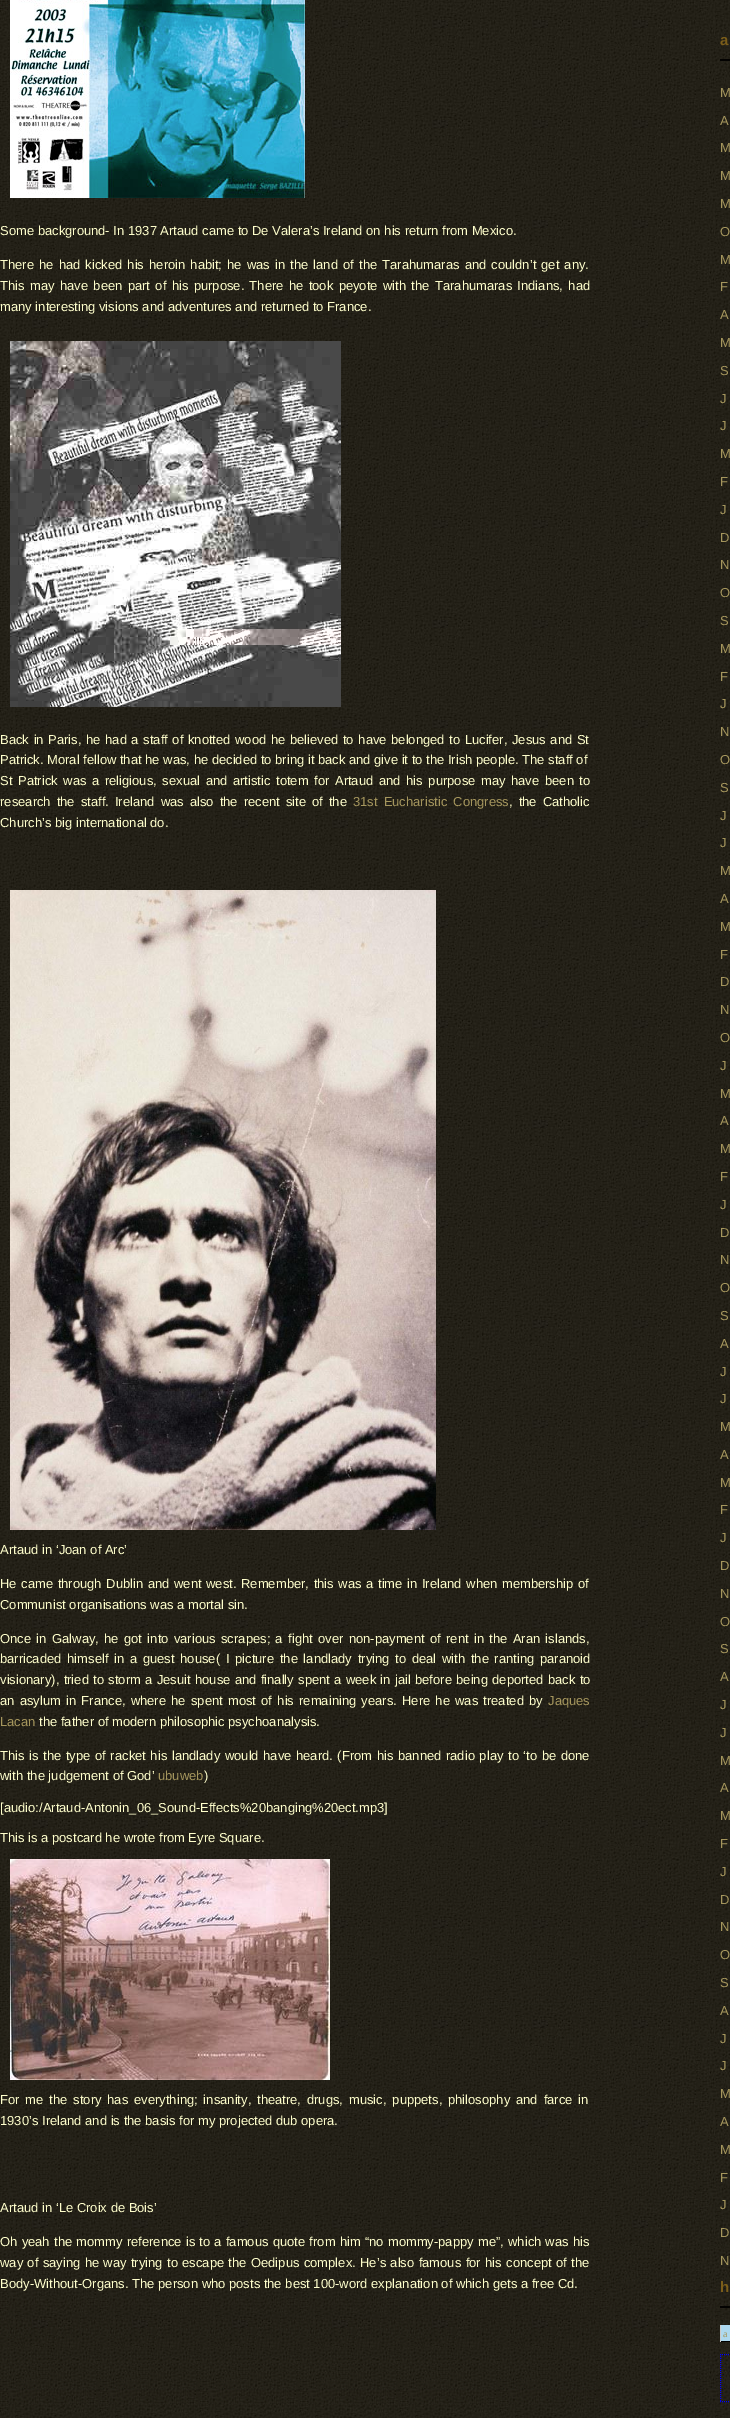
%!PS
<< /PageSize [730 2418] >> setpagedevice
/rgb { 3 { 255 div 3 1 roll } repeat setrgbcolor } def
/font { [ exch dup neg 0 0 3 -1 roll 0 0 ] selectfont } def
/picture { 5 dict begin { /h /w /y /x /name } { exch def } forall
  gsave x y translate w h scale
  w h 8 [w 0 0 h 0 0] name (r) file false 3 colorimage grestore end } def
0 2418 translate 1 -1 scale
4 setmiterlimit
255 255 255 rgb
0 0 730 2418 rectfill
(img/1.rgb) 0 0 730 2418 picture
(img/2.rgb) 10 0 295 198 picture
(img/3.rgb) 10 341 331 366 picture
(img/4.rgb) 10 890 426 640 picture
(img/5.rgb) 10 1859 320 221 picture
[
  [720 59 10 2 3 2 1]
  [720 2306 10 2 3 2 1]
  [721 2325 9 16 173 216 239]
  [720 2341 10 1 0 0 0]
  [720 2325 1 17 204 204 204]
] { aload pop rgb rectfill } forall
0 0 255 rgb
[1 1] 0 setdash
720 2354.5 moveto 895 2354.5 lineto 720 2401.5 moveto 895 2401.5 lineto 720.5 2354 moveto 720.5 2402 lineto stroke
/LiberationSans-Regular 13 font
255 255 204 rgb
0 235 moveto (Some background- In 1937 Artaud came to De Valera’s Ireland on his return from Mexico.) show
0 269 moveto 1.5 0 32 (There he had kicked his heroin habit; he was in the land of the Tarahumaras and couldn’t get any.) widthshow
0 290 moveto 1.75 0 32 (This may have been part of his purpose. There he took peyote with the Tarahumaras Indians, had) widthshow
0 311 moveto (many interesting visions and adventures and returned to France.) show
0 744 moveto 1 0 32 (Back in Paris, he had a staff of knotted wood he believed to have belonged to Lucifer, Jesus and St) widthshow
0 764 moveto (Patrick. Moral fellow that he was, he decided to bring it back and give it to the Irish people. The staff of) show
0 785 moveto 2 0 32 (St Patrick was a religious, sexual and artistic totem for Artaud and his purpose may have been to) widthshow
0 806 moveto 2.4 0 32 (research the staff. Ireland was also the recent site of the) widthshow
165 150 93 rgb
353 806 moveto 2.4 0 32 (31st Eucharistic Congress) widthshow
255 255 204 rgb
509 806 moveto 2.4 0 32 (, the Catholic) widthshow
0 827 moveto (Church’s big international do.) show
0 1554 moveto (Artaud in ‘Joan of Arc’) show
0 1588 moveto 1 0 32 (He came through Dublin and went west. Remember, this was a time in Ireland when membership of) widthshow
0 1609 moveto (Communist organisations was a mortal sin.) show
0 1643 moveto 1.75 0 32 (Once in Galway, he got into various scrapes; a fight over non-payment of rent in the Aran islands,) widthshow
0 1663 moveto 2.1 0 32 (barricaded himself in a guest house\( I picture the landlady trying to deal with the ranting paranoid) widthshow
0 1684 moveto 0.7 0 32 (visionary\), tried to storm a Jesuit house and finally spent a week in jail before being deported back to) widthshow
0 1705 moveto 1.6 0 32 (an asylum in France, where he spent most of his remaining years. Here he was treated by) widthshow
165 150 93 rgb
548 1705 moveto (Jaques) show
0 1726 moveto (Lacan) show
255 255 204 rgb
39 1726 moveto (the father of modern philosophic psychoanalysis.) show
0 1760 moveto 1 0 32 (This is the type of racket his landlady would have heard. \(From his banned radio play to ‘to be done) widthshow
0 1780 moveto (with the judgement of God’) show
165 150 93 rgb
158 1780 moveto (ubuweb) show
255 255 204 rgb
[
  [(\)) 204 1780]
  [([audio:/Artaud-Antonin_06_Sound-Effects%20banging%20ect.mp3]) 0 1812]
  [(This is a postcard he wrote from Eyre Square.) 0 1842]
] { aload pop moveto show } forall
0 2104 moveto 2.25 0 32 (For me the story has everything; insanity, theatre, drugs, music, puppets, philosophy and farce in) widthshow
0 2125 moveto (1930’s Ireland and is the basis for my projected dub opera.) show
0 2212 moveto (Artaud in ‘Le Croix de Bois’) show
0 2246 moveto 0.6 0 32 (Oh yeah the mommy reference is to a famous quote from him “no mommy-pappy me”, which was his) widthshow
0 2267 moveto 0.75 0 32 (way of saying he way trying to escape the Oedipus complex. He’s also famous for his concept of the) widthshow
0 2288 moveto (Body-Without-Organs. The person who posts the best 100-word explanation of which gets a free Cd.) show
/LiberationSans-Bold 15 font
123 93 26 rgb
720 45 moveto 1 0 (a) ashow
/LiberationSans-Regular 13 font
165 150 93 rgb
[
  [(M) 720 97]
  [(A) 720 125]
  [(M) 720 152]
  [(M) 720 180]
  [(M) 720 208]
  [(O) 720 236]
  [(M) 720 264]
  [(F) 720 291]
  [(A) 720 319]
  [(M) 720 347]
  [(S) 720 375]
  [(J) 720 403]
  [(J) 720 430]
  [(M) 720 458]
  [(F) 720 486]
  [(J) 720 514]
  [(D) 720 542]
  [(N) 720 569]
  [(O) 720 597]
  [(S) 720 625]
  [(M) 720 653]
  [(F) 720 681]
  [(J) 720 708]
  [(N) 720 736]
  [(O) 720 764]
  [(S) 720 792]
  [(J) 720 820]
  [(J) 720 847]
  [(M) 720 875]
  [(A) 720 903]
  [(M) 720 931]
  [(F) 720 959]
  [(D) 720 986]
  [(N) 720 1014]
  [(O) 720 1042]
  [(J) 720 1070]
  [(M) 720 1098]
  [(A) 720 1125]
  [(M) 720 1153]
  [(F) 720 1181]
  [(J) 720 1209]
  [(D) 720 1237]
  [(N) 720 1264]
  [(O) 720 1292]
  [(S) 720 1320]
  [(A) 720 1348]
  [(J) 720 1376]
  [(J) 720 1403]
  [(M) 720 1431]
  [(A) 720 1459]
  [(M) 720 1487]
  [(F) 720 1514]
  [(J) 720 1542]
  [(D) 720 1570]
  [(N) 720 1598]
  [(O) 720 1626]
  [(S) 720 1653]
  [(A) 720 1681]
  [(J) 720 1709]
  [(J) 720 1737]
  [(M) 720 1765]
  [(A) 720 1792]
  [(M) 720 1820]
  [(F) 720 1848]
  [(J) 720 1876]
  [(D) 720 1904]
  [(N) 720 1931]
  [(O) 720 1959]
  [(S) 720 1987]
  [(A) 720 2015]
  [(J) 720 2043]
  [(J) 720 2070]
  [(M) 720 2098]
  [(A) 720 2126]
  [(M) 720 2154]
  [(F) 720 2182]
  [(J) 720 2209]
  [(D) 720 2237]
  [(N) 720 2265]
] { aload pop moveto show } forall
/LiberationSans-Bold 15 font
123 93 26 rgb
720 2292 moveto 1 0 (h) ashow
/LiberationSerif-Regular 10 font
165 150 93 rgb
723 2337 moveto (a) show
showpage
